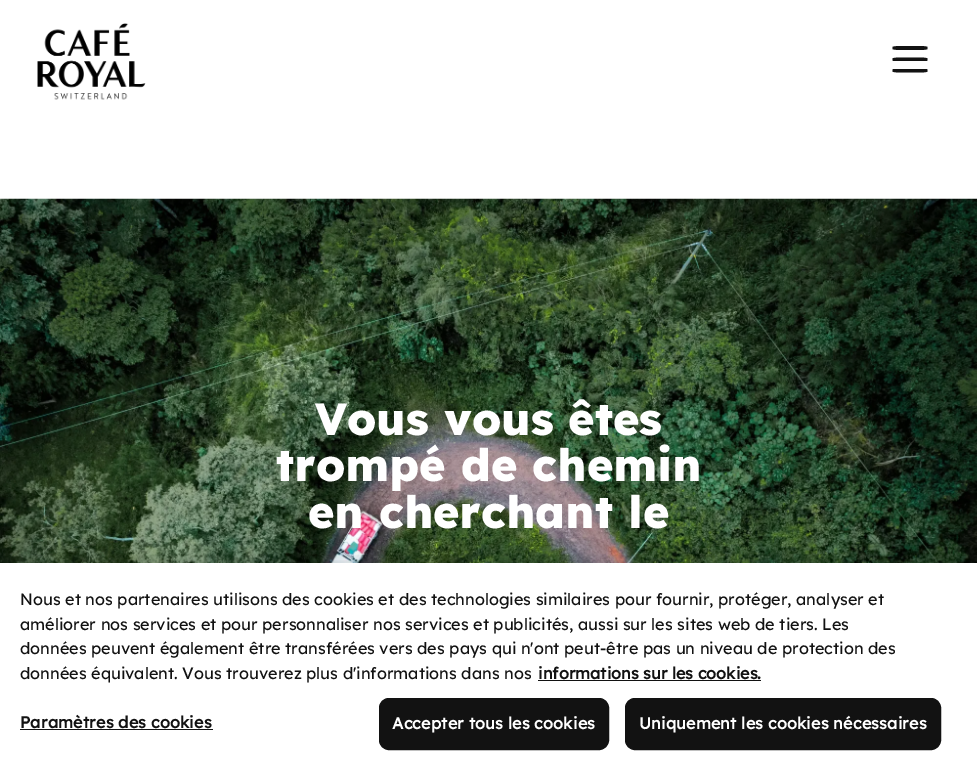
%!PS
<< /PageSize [977 774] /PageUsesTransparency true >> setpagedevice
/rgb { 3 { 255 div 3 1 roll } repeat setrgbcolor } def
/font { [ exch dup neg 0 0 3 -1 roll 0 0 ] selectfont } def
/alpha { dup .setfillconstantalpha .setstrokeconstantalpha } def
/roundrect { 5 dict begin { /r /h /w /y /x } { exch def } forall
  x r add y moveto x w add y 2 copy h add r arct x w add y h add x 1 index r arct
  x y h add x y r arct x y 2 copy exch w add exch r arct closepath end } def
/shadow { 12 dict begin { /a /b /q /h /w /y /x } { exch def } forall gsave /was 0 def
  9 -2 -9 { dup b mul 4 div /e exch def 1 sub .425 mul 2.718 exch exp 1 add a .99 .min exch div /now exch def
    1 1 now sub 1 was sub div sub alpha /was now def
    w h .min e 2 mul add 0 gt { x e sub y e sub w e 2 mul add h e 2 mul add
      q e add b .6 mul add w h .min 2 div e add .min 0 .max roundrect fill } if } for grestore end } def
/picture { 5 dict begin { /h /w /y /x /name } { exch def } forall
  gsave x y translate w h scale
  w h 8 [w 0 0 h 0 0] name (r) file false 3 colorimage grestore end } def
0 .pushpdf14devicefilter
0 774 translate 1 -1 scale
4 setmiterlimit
255 255 255 rgb
0 0 977 774 rectfill
(img/1.rgb) 37 23 109 77 picture
18 18 18 rgb
901 46 moveto 919 46 lineto 923.5 46 927.5 46.5 927.5 47 curveto 927.5 49 lineto 927.5 49.5 923.5 50 919 50 curveto 901 50 lineto 896.5 50 892.5 49.5 892.5 49 curveto 892.5 47 lineto 892.5 46.5 896.5 46 901 46 curveto closepath 901 57.5 moveto 919 57.5 lineto 923.5 57.5 927.5 58 927.5 58.5 curveto 927.5 60.5 lineto 927.5 61 923.5 61 919 61 curveto 901 61 lineto 896.5 61 892.5 61 892.5 60.5 curveto 892.5 58.5 lineto 892.5 58 896.5 57.5 901 57.5 curveto closepath 901 69 moveto 919 69 lineto 923.5 69 927.5 69 927.5 69.5 curveto 927.5 71.5 lineto 927.5 72 923.5 72.5 919 72.5 curveto 901 72.5 lineto 896.5 72.5 892.5 72 892.5 71.5 curveto 892.5 69.5 lineto 892.5 69 896.5 69 901 69 curveto closepath fill
(img/2.rgb) 0 198 977 365 picture
0 0 0 rgb
0 563 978 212 0 11 0.2 shadow
[
  [0 563 977 211 255 255 255]
  [538 680 223 1 18 18 18]
  [20 729 193 1 18 18 18]
] { aload pop rgb rectfill } forall
379.5 698.5 229 51 9.5 roundrect gsave fill grestore
stroke
625.5 698.5 315 51 9.5 roundrect gsave fill grestore
stroke
/Lexend-ExtraBold 45 font
255 255 255 rgb
[
  [(Vous vous êtes) 315 435]
  [(trompé de chemin) 276 481]
  [(en cherchant le) 308 528]
] { aload pop moveto show } forall
/Lexend-Regular 16.25 font
18 18 18 rgb
[
  [(Nous et nos partenaires utilisons des cookies et des technologies similaires pour fournir, protéger, analyser et) 20 605]
  [(améliorer nos services et pour personnaliser nos services et publicités, aussi sur les sites web de tiers. Les) 20 630]
  [(données peuvent également être transférées vers des pays qui n'ont peut-être pas un niveau de protection des) 20 654]
  [(données équivalent. Vous trouverez plus d'informations dans nos) 20 679]
] { aload pop moveto show } forall
/Lexend-Bold 16.25 font
538 679 moveto (informations sur les cookies.) show
20 728 moveto 0.15 0 (Paramètres des cookies) ashow
255 255 255 rgb
392 729 moveto 0.15 0 (Accepter tous les cookies) ashow
639 729 moveto 0.15 0 (Uniquement les cookies nécessaires) ashow
.poppdf14devicefilter showpage
